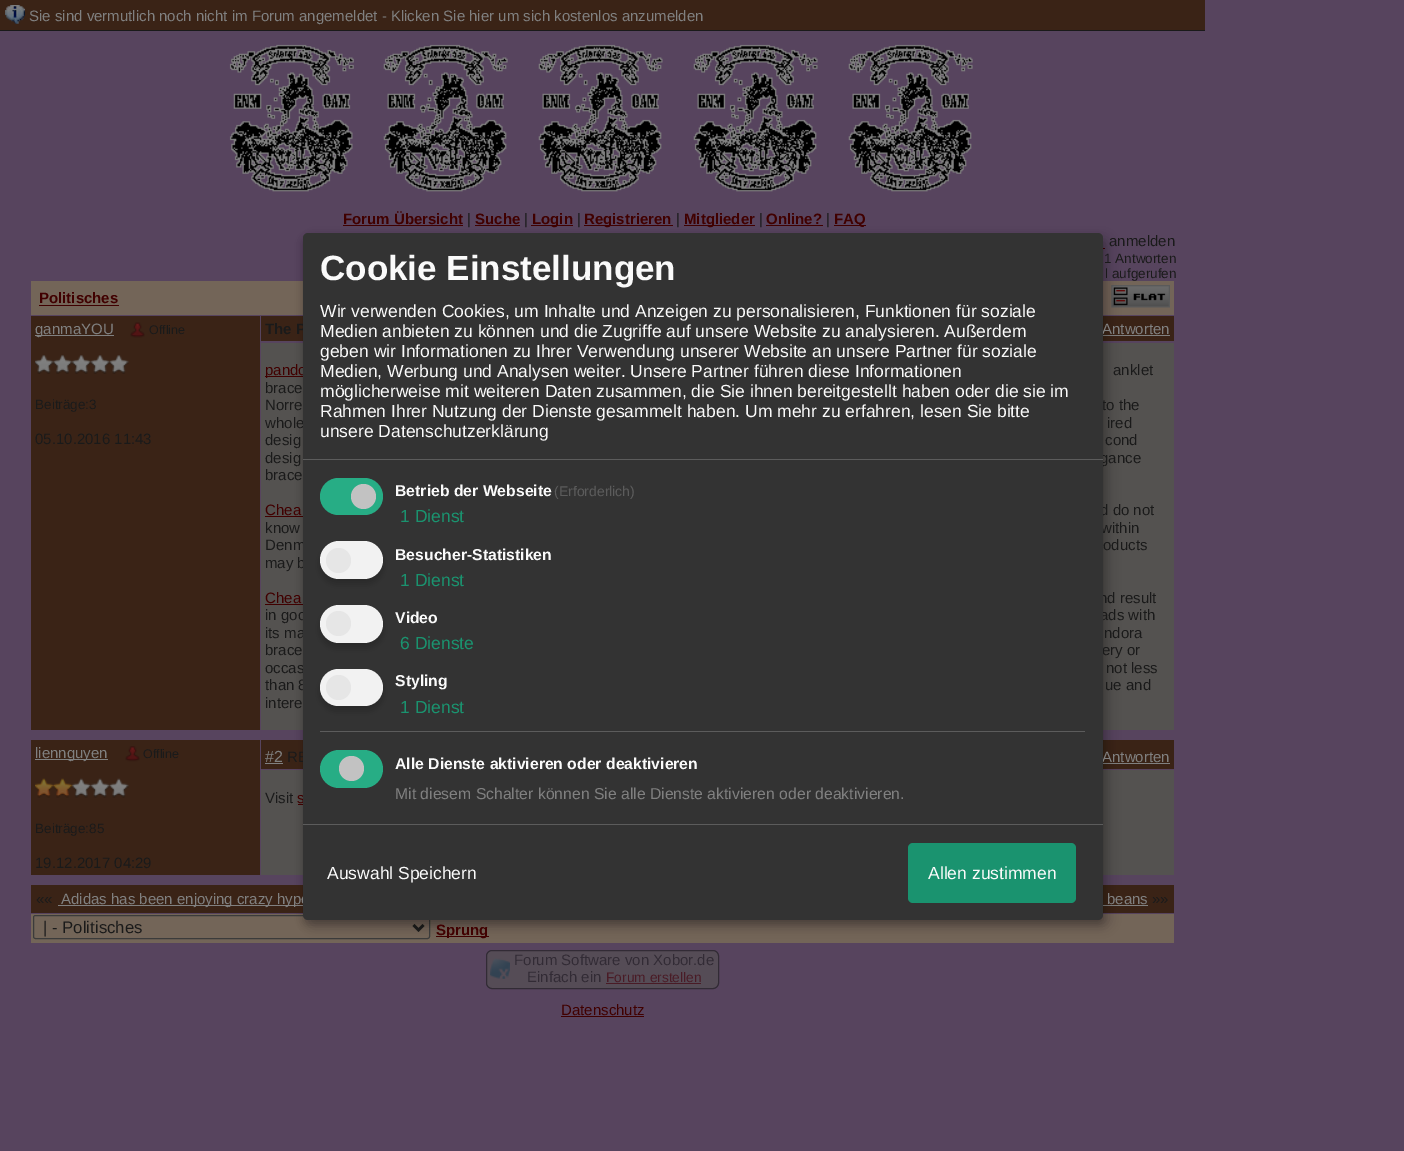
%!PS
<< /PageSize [1404 1151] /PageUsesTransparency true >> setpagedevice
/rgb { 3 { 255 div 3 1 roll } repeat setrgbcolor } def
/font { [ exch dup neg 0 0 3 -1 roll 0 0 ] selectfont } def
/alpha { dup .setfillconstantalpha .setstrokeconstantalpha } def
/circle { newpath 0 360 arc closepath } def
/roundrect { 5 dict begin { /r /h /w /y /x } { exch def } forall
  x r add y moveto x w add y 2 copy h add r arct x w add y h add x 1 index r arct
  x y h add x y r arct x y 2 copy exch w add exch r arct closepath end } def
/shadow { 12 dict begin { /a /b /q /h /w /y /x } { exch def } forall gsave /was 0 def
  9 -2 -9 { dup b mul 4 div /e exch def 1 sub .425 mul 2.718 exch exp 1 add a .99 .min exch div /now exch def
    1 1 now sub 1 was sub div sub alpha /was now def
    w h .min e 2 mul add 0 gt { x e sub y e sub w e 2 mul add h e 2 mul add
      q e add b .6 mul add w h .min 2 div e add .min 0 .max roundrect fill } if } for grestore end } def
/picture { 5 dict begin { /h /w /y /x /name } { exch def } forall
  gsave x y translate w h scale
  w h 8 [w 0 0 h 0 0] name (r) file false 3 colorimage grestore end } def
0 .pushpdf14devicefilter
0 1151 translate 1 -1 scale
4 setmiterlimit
87 68 94 rgb
0 0 1404 1151 rectfill
58 35 22 rgb
0 0 1205 30 rectfill
26 26 26 rgb
0 30 1205 1 rectfill
(img/1.rgb) 5 5 20 19 picture
(img/2.rgb) 229 44 744 148 picture
[
  [343 225 120 1 64 0 0]
  [475 225 45 1 64 0 0]
  [531 225 42 1 64 0 0]
  [584 225 89 1 64 0 0]
  [684 225 71 1 64 0 0]
  [766 225 57 1 64 0 0]
  [834 225 32 1 64 0 0]
  [1103 248 2 1 64 0 0]
  [31 281 1143 34 115 101 88]
  [39 305 80 1 64 0 0]
] { aload pop rgb rectfill } forall
(img/3.rgb) 1111 285 59 23 picture
58 35 22 rgb
31 316 229 414 rectfill
128 128 128 rgb
35 335 79 1 rectfill
(img/4.rgb) 130 322 15 16 picture
(img/5.rgb) 35 355 94 19 picture
[
  [261 316 913 25 58 35 22]
  [1103 335 67 1 128 128 128]
  [261 343 913 387 84 82 80]
  [265 376 38 1 64 0 0]
  [265 516 38 1 64 0 0]
  [265 604 38 1 64 0 0]
  [31 740 229 135 58 35 22]
  [35 759 73 1 128 128 128]
] { aload pop rgb rectfill } forall
(img/6.rgb) 125 746 15 16 picture
(img/7.rgb) 35 778 94 20 picture
[
  [261 740 913 29 58 35 22]
  [265 763 18 1 128 128 128]
  [1103 763 67 1 128 128 128]
  [261 770 913 105 84 82 80]
  [298 804 5 1 64 0 0]
  [31 885 1143 28 58 35 22]
  [58 905 245 1 128 128 128]
  [1103 905 45 1 128 128 128]
  [31 914 1143 29 115 101 88]
] { aload pop rgb rectfill } forall
59 59 59 rgb
33.5 915.5 396 23 2 roundrect stroke
26 26 26 rgb
2.5 setlinewidth
413.5 925 moveto 418.5 930 lineto 423.5 925 lineto stroke
64 0 0 rgb
436 936 53 1 rectfill
0 0 0 rgb
309 239 800 687 5 6 0.19 shadow
303 238 800 687 5 4 0.2 shadow
85 76 86 rgb
486.5 950.5 232 38 5.5 roundrect gsave fill grestore
50 43 53 rgb
1 setlinewidth
stroke
(img/8.rgb) 490 958 20 21 picture
73 27 38 rgb
606 983 95 1 rectfill
64 0 0 rgb
561 1016 83 1 rectfill
/LiberationSans-Regular 15 font
128 128 128 rgb
29 21 moveto (Sie sind vermutlich noch nicht im Forum angemeldet - Klicken Sie hier um sich kostenlos anzumelden) show
/LiberationSans-Bold 15 font
64 0 0 rgb
343 224 moveto (Forum Übersicht) show
/LiberationSans-Regular 15 font
26 26 26 rgb
467 224 moveto (|) show
/LiberationSans-Bold 15 font
64 0 0 rgb
475 224 moveto (Suche) show
/LiberationSans-Regular 15 font
26 26 26 rgb
524 224 moveto (|) show
/LiberationSans-Bold 15 font
64 0 0 rgb
532 224 moveto (Login) show
/LiberationSans-Regular 15 font
26 26 26 rgb
577 224 moveto (|) show
/LiberationSans-Bold 15 font
64 0 0 rgb
584 224 moveto (Registrieren) show
/LiberationSans-Regular 15 font
26 26 26 rgb
676 224 moveto (|) show
/LiberationSans-Bold 15 font
64 0 0 rgb
684 224 moveto (Mitglieder) show
/LiberationSans-Regular 15 font
26 26 26 rgb
759 224 moveto (|) show
/LiberationSans-Bold 15 font
64 0 0 rgb
766 224 moveto (Online?) show
/LiberationSans-Regular 15 font
26 26 26 rgb
826 224 moveto (|) show
/LiberationSans-Bold 15 font
64 0 0 rgb
834 224 moveto (FAQ) show
/LiberationSans-Regular 15 font
26 26 26 rgb
1109 246 moveto (anmelden) show
/LiberationSans-Regular 13.5 font
1104 263 moveto (1 Antworten) show
1105 278 moveto (l aufgerufen) show
/LiberationSans-Bold 15 font
64 0 0 rgb
39 303 moveto (Politisches) show
/LiberationSans-Regular 15 font
128 128 128 rgb
35 334 moveto (ganmaYOU) show
/LiberationSans-Regular 12.5 font
26 26 26 rgb
149 334 moveto (Offline) show
/LiberationSans-Regular 13.5 font
35 409 moveto (Beiträge:3) show
/LiberationSans-Regular 15 font
35 444 moveto (05.10.2016 11:43) show
/LiberationSans-Bold 15 font
265 334 moveto (The P) show
/LiberationSans-Regular 15 font
128 128 128 rgb
1102 334 moveto (Antworten) show
64 0 0 rgb
265 375 moveto (pando) show
26 26 26 rgb
[
  [(anklet) 1113 375]
  [(brace) 265 393]
  [(Norre) 265 410]
  [(to the) 1102 410]
  [(whole) 265 428]
  [(ired) 1107 428]
  [(desig) 265 445]
  [(cond) 1105 445]
  [(desig) 265 463]
  [(gance) 1100 463]
  [(brace) 265 480]
] { aload pop moveto show } forall
64 0 0 rgb
265 515 moveto (Chea) show
26 26 26 rgb
[
  [(d do not) 1100 515]
  [(know) 265 533]
  [(within) 1101 533]
  [(Denm) 265 550]
  [(oducts) 1103 550]
  [(may b) 265 568]
] { aload pop moveto show } forall
64 0 0 rgb
265 603 moveto (Chea) show
26 26 26 rgb
[
  [(nd result) 1099 603]
  [(in goo) 265 620]
  [(ads with) 1100 620]
  [(its ma) 265 638]
  [(ndora) 1104 638]
  [(brace) 265 655]
  [(ery or) 1102 655]
  [(occas) 265 673]
  [(not less) 1106 673]
  [(than 8) 265 690]
  [(ue and) 1105 690]
  [(intere) 265 708]
] { aload pop moveto show } forall
128 128 128 rgb
35 758 moveto (liennguyen) show
/LiberationSans-Regular 12.5 font
26 26 26 rgb
143 758 moveto (Offline) show
/LiberationSans-Regular 13.5 font
35 833 moveto (Beiträge:85) show
/LiberationSans-Regular 15 font
35 868 moveto (19.12.2017 04:29) show
/LiberationSans-Regular 16 font
128 128 128 rgb
265 762 moveto (#2) show
/LiberationSans-Regular 15 font
26 26 26 rgb
287 762 moveto (RE) show
128 128 128 rgb
1102 762 moveto (Antworten) show
26 26 26 rgb
265 803 moveto (Visit) show
64 0 0 rgb
297 803 moveto (s) show
26 26 26 rgb
36 904 moveto (««) show
128 128 128 rgb
61 904 moveto (Adidas has been enjoying crazy hype) show
1107 904 moveto (beans) show
26 26 26 rgb
1152 904 moveto (»») show
/LiberationSans-Regular 16.75 font
43 933 moveto (| - Politisches) show
/LiberationSans-Bold 15 font
64 0 0 rgb
436 935 moveto (Sprung) show
51 51 51 rgb
303 233 800 687 5 roundrect fill
92 92 92 rgb
303 459 800 1 rectfill
/LiberationSans-Bold 35 font
250 250 250 rgb
320 280 moveto (Cookie Einstellungen) show
/LiberationSans-Regular 17.5 font
[
  [(Wir verwenden Cookies, um Inhalte und Anzeigen zu personalisieren, Funktionen für soziale) 320 317]
  [(Medien anbieten zu können und die Zugriffe auf unsere Website zu analysieren. Außerdem) 320 337]
  [(geben wir Informationen zu Ihrer Verwendung unserer Website an unsere Partner für soziale) 320 357]
  [(Medien, Werbung und Analysen weiter. Unsere Partner führen diese Informationen) 320 377]
  [(möglicherweise mit weiteren Daten zusammen, die Sie ihnen bereitgestellt haben oder die sie im) 320 397]
  [(Rahmen Ihrer Nutzung der Dienste gesammelt haben. Um mehr zu erfahren, lesen Sie bitte) 320 417]
  [(unsere Datenschutzerklärung) 320 437]
] { aload pop moveto show } forall
39 173 133 rgb
320 478 63 37 18.5 roundrect fill
194 194 194 rgb
363.5 496.5 12.5 circle fill
/LiberationSans-Bold 15.75 font
250 250 250 rgb
395 496 moveto (Betrieb der Webseite) show
/LiberationSans-Regular 14 font
92 92 92 rgb
554 496 moveto (\(Erforderlich\)) show
/LiberationSans-Regular 17.5 font
26 147 111 rgb
400 522 moveto (1 Dienst) show
0 0 0 rgb
320 546 63 38 19 4 0.2 shadow
242 242 242 rgb
320 541 63 38 19 roundrect fill
230 230 230 rgb
338.5 560.5 12.5 circle fill
/LiberationSans-Bold 15.75 font
250 250 250 rgb
395 560 moveto (Besucher-Statistiken) show
/LiberationSans-Regular 17.5 font
26 147 111 rgb
400 586 moveto (1 Dienst) show
0 0 0 rgb
320 610 63 38 19 4 0.2 shadow
242 242 242 rgb
320 605 63 38 19 roundrect fill
230 230 230 rgb
338.5 623.5 12.5 circle fill
/LiberationSans-Bold 15.75 font
250 250 250 rgb
395 623 moveto (Video) show
/LiberationSans-Regular 17.5 font
26 147 111 rgb
400 649 moveto (6 Dienste) show
0 0 0 rgb
320 674 63 37 18.5 4 0.2 shadow
242 242 242 rgb
320 669 63 37 18.5 roundrect fill
230 230 230 rgb
338.5 687.5 12.5 circle fill
/LiberationSans-Bold 15.75 font
250 250 250 rgb
395 686 moveto (Styling) show
/LiberationSans-Regular 17.5 font
26 147 111 rgb
400 713 moveto (1 Dienst) show
92 92 92 rgb
320 731 765 1 rectfill
39 173 133 rgb
320 750 63 38 19 roundrect fill
194 194 194 rgb
351.5 768.5 12.5 circle fill
/LiberationSans-Bold 15.75 font
250 250 250 rgb
395 769 moveto (Alle Dienste aktivieren oder deaktivieren) show
/LiberationSans-Regular 15.75 font
128 128 128 rgb
395 799 moveto (Mit diesem Schalter können Sie alle Dienste aktivieren oder deaktivieren.) show
92 92 92 rgb
303 824 800 1 rectfill
/LiberationSans-Regular 17.5 font
250 250 250 rgb
327 879 moveto (Auswahl Speichern) show
26 147 111 rgb
908 843 168 60 5 roundrect fill
250 250 250 rgb
928 879 moveto (Allen zustimmen) show
/LiberationSans-Regular 15 font
50 43 53 rgb
514 965 moveto (Forum Software von Xobor.de) show
527 982 moveto (Einfach ein) show
/LiberationSans-Regular 13.75 font
73 27 38 rgb
606 982 moveto (Forum erstellen) show
/LiberationSans-Regular 15 font
64 0 0 rgb
561 1015 moveto (Datenschutz) show
.poppdf14devicefilter showpage
